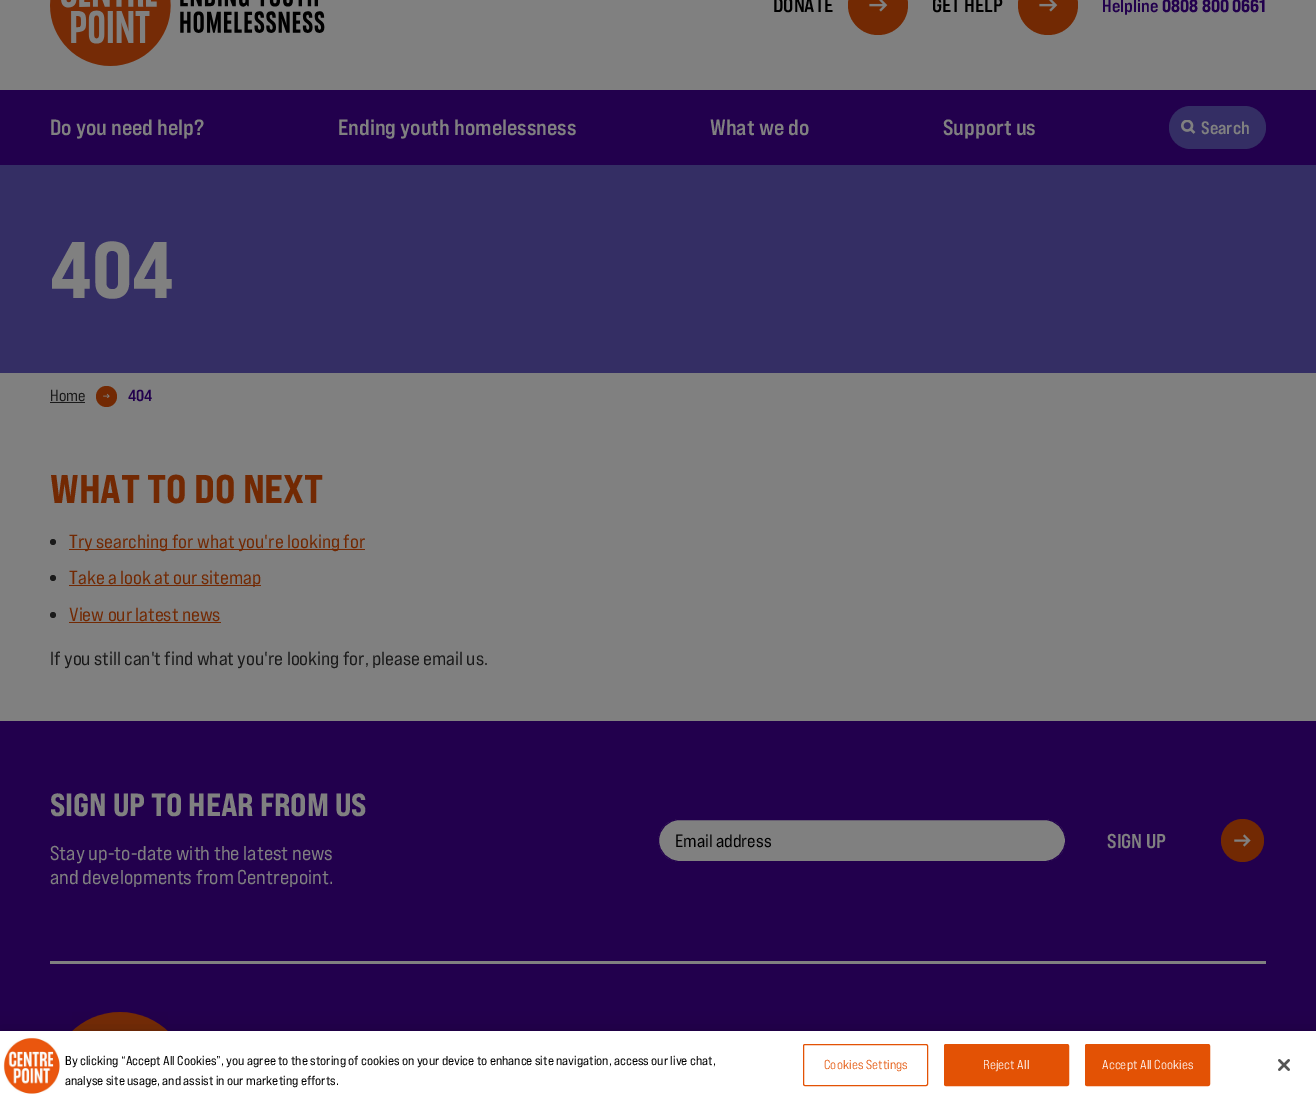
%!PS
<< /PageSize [1316 1102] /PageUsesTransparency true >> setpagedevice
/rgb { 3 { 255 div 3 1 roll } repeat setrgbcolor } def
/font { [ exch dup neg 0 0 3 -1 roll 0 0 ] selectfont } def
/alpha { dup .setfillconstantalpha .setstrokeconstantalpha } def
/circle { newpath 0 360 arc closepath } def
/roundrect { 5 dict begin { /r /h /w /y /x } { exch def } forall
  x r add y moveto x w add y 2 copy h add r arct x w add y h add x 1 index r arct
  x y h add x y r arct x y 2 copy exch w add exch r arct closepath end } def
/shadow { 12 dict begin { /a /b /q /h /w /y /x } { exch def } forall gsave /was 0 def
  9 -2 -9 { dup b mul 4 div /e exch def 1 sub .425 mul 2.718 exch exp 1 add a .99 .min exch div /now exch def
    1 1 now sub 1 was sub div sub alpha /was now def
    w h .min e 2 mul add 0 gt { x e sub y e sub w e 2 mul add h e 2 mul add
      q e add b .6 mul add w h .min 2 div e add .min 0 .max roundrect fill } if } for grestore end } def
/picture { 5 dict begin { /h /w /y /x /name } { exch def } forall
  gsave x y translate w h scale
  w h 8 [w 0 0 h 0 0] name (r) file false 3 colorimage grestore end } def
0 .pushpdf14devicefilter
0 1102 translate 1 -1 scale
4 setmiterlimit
128 128 128 rgb
0 0 1316 1102 rectfill
(img/1.rgb) 50 0 275 66 picture
114 41 3 rgb
878 5 30 circle fill
(img/2.rgb) 869 0 19 12 picture
1048 5 30 circle fill
(img/2.rgb) 1039 0 19 12 picture
34 0 77 rgb
0 90 1316 75 rectfill
52 46 100 rgb
1169 106 97 43 21.5 roundrect fill
(img/3.rgb) 1181 120 15 14 picture
0 165 1316 208 rectfill
26 26 26 rgb
50 402 35 1 rectfill
114 41 3 rgb
106.5 396.5 10.5 circle fill
(img/4.rgb) 103 393 7 5 picture
26 26 26 rgb
53 542 3 circle fill
114 41 3 rgb
69 549 296 1 rectfill
26 26 26 rgb
53 578 3 circle fill
114 41 3 rgb
69 585 192 1 rectfill
26 26 26 rgb
53 615 3 circle fill
[
  [69 622 152 1 114 41 3]
  [0 721 1316 310 34 0 77]
  [50 961 1216 3 128 128 128]
] { aload pop rgb rectfill } forall
658.5 819.5 407 42 21 roundrect gsave fill grestore
34 0 77 rgb
stroke
114 41 3 rgb
1242.5 840.5 21.5 circle fill
128 128 128 rgb
2.1 setlinewidth
2 setlinecap
1247.5 840.5 moveto 1235.5 840.5 lineto 1249 840.5 moveto 1244.5 836 lineto 1244.5 845 moveto 1249 840.5 lineto stroke
(img/5.rgb) 72 1012 96 19 picture
0 0 0 rgb
0 1031 1316 71 0 9 0.2 shadow
255 255 255 rgb
0 1031 1316 71 rectfill
(img/6.rgb) 3 1037 57 57 picture
227 82 5 rgb
1 setlinewidth
0 setlinecap
803.5 1044.5 124 41 1.5 roundrect stroke
944.5 1044.5 124 41 1.5 roundrect gsave fill grestore
stroke
1085.5 1044.5 124 41 1.5 roundrect gsave fill grestore
stroke
(img/7.rgb) 1278 1059 12 12 picture
/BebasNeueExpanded-Bold 20 font
0 0 0 rgb
773 12 moveto (DONATE) show
932 12 moveto (GET HELP) show
/BebasNeueExpanded-Bold 18 font
34 0 77 rgb
1102 12 moveto (Helpline) show
/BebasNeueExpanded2-Bold 18 font
1162 12 moveto (0808 800 0661) show
/BebasNeueExpanded-Bold 22 font
128 128 128 rgb
[
  [(Do you need help?) 50 135]
  [(Ending youth homelessness) 338 135]
  [(What we do) 710 135]
  [(Support us) 943 135]
] { aload pop moveto show } forall
/BebasNeueExpanded-Bold 18 font
1201 134 moveto (Search) show
/BebasNeueExpanded2-Bold 80 font
50 298 moveto (404) show
/BebasNeueExpanded-Regular 16 font
26 26 26 rgb
50 401 moveto (Home) show
/BebasNeueExpanded-Bold 16 font
34 0 77 rgb
128 401 moveto (404) show
/BebasNeueExpanded2-Bold 40 font
114 41 3 rgb
50 503 moveto (WHAT TO DO NEXT) show
/BebasNeueExpanded-Regular 19 font
[
  [(Try searching for what you're looking for) 69 548]
  [(Take a look at our sitemap) 69 584]
  [(View our latest news) 69 621]
] { aload pop moveto show } forall
26 26 26 rgb
50 665 moveto (If you still can't find what you're looking for, please email us.) show
/BebasNeueExpanded2-Bold 32 font
128 128 128 rgb
50 816 moveto (SIGN UP TO HEAR FROM US) show
/BebasNeueExpanded-Regular 20 font
50 860 moveto (Stay up-to-date with the latest news) show
50 884 moveto (and developments from Centrepoint.) show
/BebasNeueExpanded-Regular 18 font
0 0 0 rgb
675 847 moveto (Email address) show
/BebasNeueExpanded-Bold 20 font
128 128 128 rgb
1107 848 moveto (SIGN UP) show
/BebasNeueExpanded-Regular 13 font
0 0 0 rgb
65 1065 moveto (By clicking “Accept All Cookies”, you agree to the storing of cookies on your device to enhance site navigation, access our live chat,) show
65 1085 moveto (analyse site usage, and assist in our marketing efforts.) show
/BebasNeueExpanded2-Regular 13 font
227 82 5 rgb
824 1069 moveto 0.1 0 (Cookies Settings) ashow
255 255 255 rgb
983 1069 moveto 0.1 0 (Reject All) ashow
1102 1069 moveto 0.1 0 (Accept All Cookies) ashow
.poppdf14devicefilter showpage
